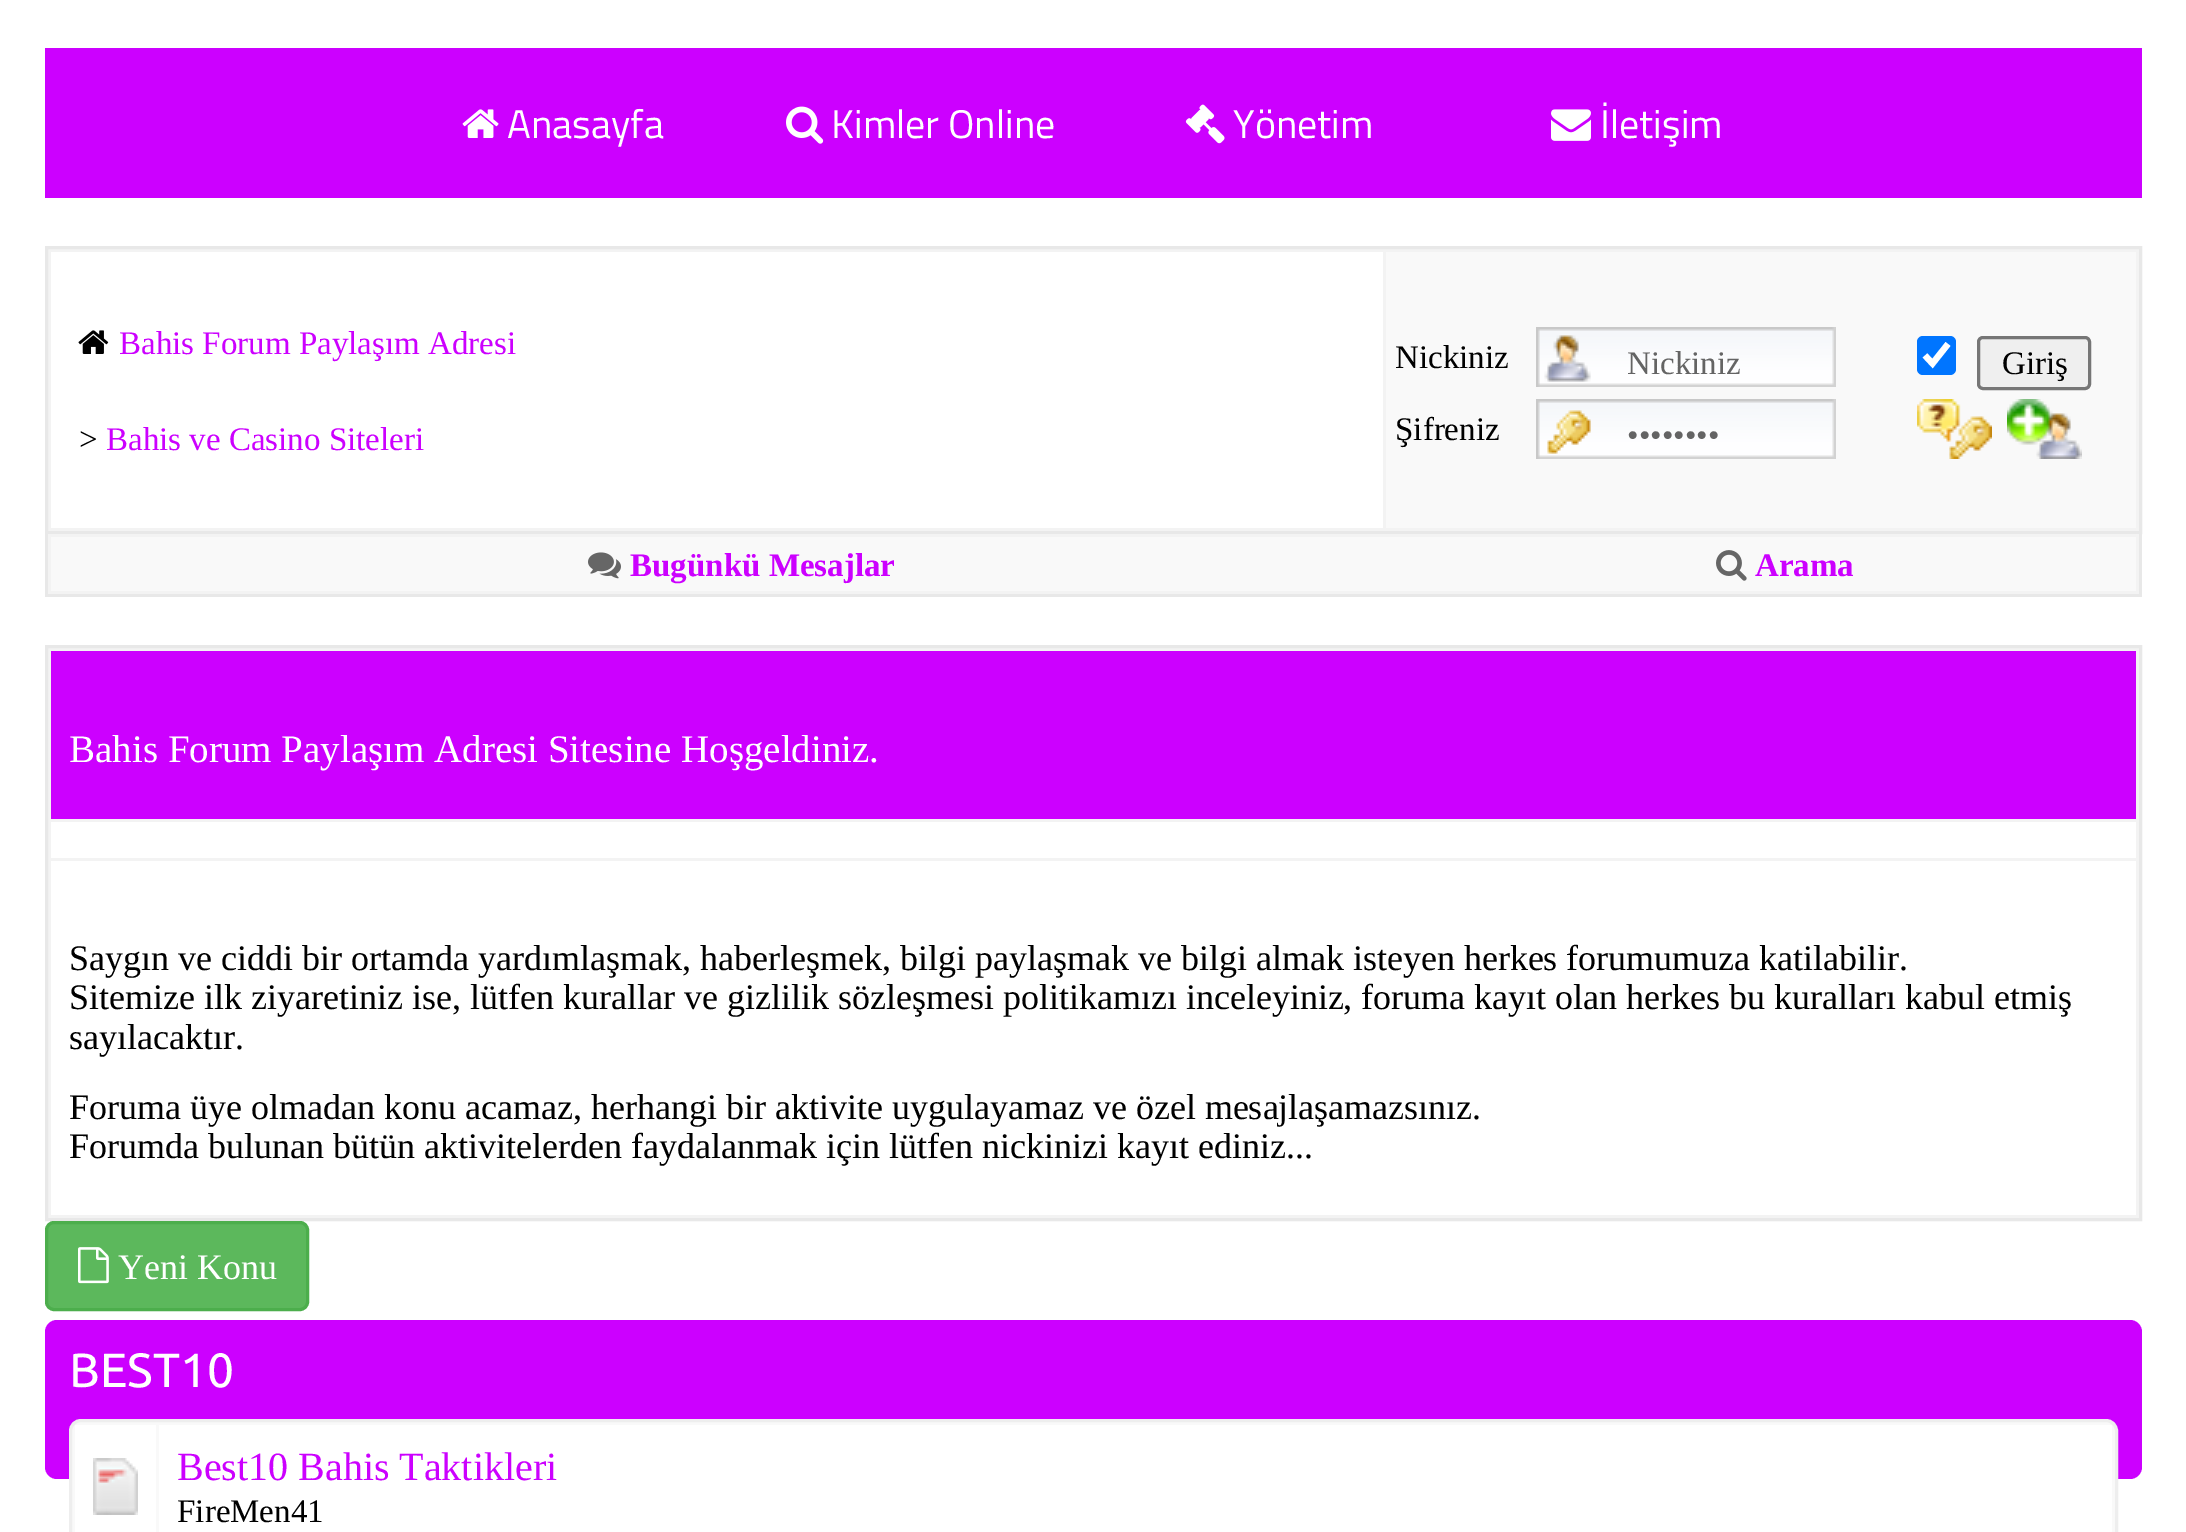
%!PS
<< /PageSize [2186 1532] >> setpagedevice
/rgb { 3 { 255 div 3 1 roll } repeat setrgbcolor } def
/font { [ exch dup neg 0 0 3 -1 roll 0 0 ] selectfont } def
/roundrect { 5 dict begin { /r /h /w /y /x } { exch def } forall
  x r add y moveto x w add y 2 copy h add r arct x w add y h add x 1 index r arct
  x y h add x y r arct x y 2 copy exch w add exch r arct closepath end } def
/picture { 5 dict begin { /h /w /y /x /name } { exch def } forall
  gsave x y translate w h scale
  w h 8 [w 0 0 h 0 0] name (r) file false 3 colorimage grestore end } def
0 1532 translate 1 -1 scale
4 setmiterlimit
255 255 255 rgb
0 0 2186 1532 rectfill
204 0 255 rgb
45 48 2097 150 rectfill
(img/1.rgb) 462 109 37 29 picture
(img/2.rgb) 786 106 38 38 picture
(img/3.rgb) 1185 104 40 40 picture
(img/4.rgb) 1551 109 40 32 picture
243 243 243 rgb
46.5 247.5 moveto 2140.5 247.5 lineto 2140.5 532.5 lineto 46.5 532.5 lineto closepath gsave fill grestore
232 232 232 rgb
3 setlinewidth
stroke
255 255 255 rgb
51 252 1332 276 rectfill
(img/5.rgb) 78 330 31 24 picture
249 249 249 rgb
1386 252 750 276 rectfill
(img/6.rgb) 1536 327 300 60 picture
0 117 255 rgb
1917 336 39 39 6 roundrect fill
255 255 255 rgb
6.2 setlinewidth
1925 355.5 moveto 1932.5 363.5 lineto 1948 344 lineto stroke
239 239 239 rgb
1978.5 337.5 111 51 4.5 roundrect gsave fill grestore
118 118 118 rgb
3 setlinewidth
stroke
(img/7.rgb) 1536 399 300 60 picture
(img/8.rgb) 1917 399 75 60 picture
(img/9.rgb) 2007 399 75 60 picture
[
  [48 534 2091 60 243 243 243]
  [2139 534 3 63 232 232 232]
  [45 594 2097 3 232 232 232]
  [45 534 3 63 232 232 232]
  [51 537 2085 54 249 249 249]
] { aload pop rgb rectfill } forall
(img/10.rgb) 588 552 33 27 picture
(img/11.rgb) 1716 550 31 31 picture
243 243 243 rgb
46.5 646.5 moveto 2140.5 646.5 lineto 2140.5 1219.5 lineto 46.5 1219.5 lineto closepath gsave fill grestore
232 232 232 rgb
stroke
[
  [51 651 2085 168 204 0 255]
  [51 822 2085 36 255 255 255]
  [51 861 2085 354 255 255 255]
] { aload pop rgb rectfill } forall
92 184 92 rgb
46.5 1222.5 261 87 7.5 roundrect gsave fill grestore
76 174 76 rgb
stroke
(img/12.rgb) 78 1247 31 37 picture
204 0 255 rgb
45 1320 2097 159 12 roundrect fill
249 249 249 rgb
70.5 1420.5 2046 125 10.5 roundrect gsave fill grestore
238 238 238 rgb
stroke
255 255 255 rgb
75 1425 81 107 rectfill
(img/13.rgb) 93 1458 45 57 picture
159 1425 1953 107 rectfill
/TitilliumWeb-Regular 40 font
[
  [(Anasayfa) 507 138]
  [(Kimler Online) 831 138]
  [(Yönetim) 1233 138]
  [(İletişim) 1600 138]
] { aload pop moveto show } forall
/LiberationSerif-Regular 33 font
204 0 255 rgb
119 354 moveto (Bahis Forum Paylaşım Adresi) show
0 0 0 rgb
79 450 moveto (>) show
204 0 255 rgb
106 450 moveto (Bahis ve Casino Siteleri) show
0 0 0 rgb
1395 368 moveto (Nickiniz) show
100 100 100 rgb
1627 374 moveto (Nickiniz) show
0 0 0 rgb
2002 374 moveto (Giriş) show
1395 440 moveto (Şifreniz) show
100 100 100 rgb
1627 446 moveto (••••••••) show
/LiberationSerif-Bold 33 font
204 0 255 rgb
630 576 moveto (Bugünkü Mesajlar) show
1755 576 moveto (Arama) show
/LiberationSerif-Regular 39 font
255 255 255 rgb
69 762 moveto (Bahis Forum Paylaşım Adresi Sitesine Hoşgeldiniz.) show
/LiberationSerif-Regular 36 font
0 0 0 rgb
[
  [(Saygın ve ciddi bir ortamda yardımlaşmak, haberleşmek, bilgi paylaşmak ve bilgi almak isteyen herkes forumumuza katilabilir.) 69 970]
  [(Sitemize ilk ziyaretiniz ise, lütfen kurallar ve gizlilik sözleşmesi politikamızı inceleyiniz, foruma kayıt olan herkes bu kuralları kabul etmiş) 69 1009]
  [(sayılacaktır.) 69 1049]
  [(Foruma üye olmadan konu acamaz, herhangi bir aktivite uygulayamaz ve özel mesajlaşamazsınız.) 69 1119]
  [(Forumda bulunan bütün aktivitelerden faydalanmak için lütfen nickinizi kayıt ediniz...) 69 1158]
] { aload pop moveto show } forall
255 255 255 rgb
118 1279 moveto (Yeni Konu) show
/Ubuntu-Regular 48 font
69 1387 moveto (BEST10) show
/LiberationSerif-Regular 40 font
204 0 255 rgb
177 1480 moveto (Best10 Bahis Taktikleri) show
/LiberationSerif-Regular 33 font
0 0 0 rgb
177 1522 moveto (FireMen41) show
showpage
